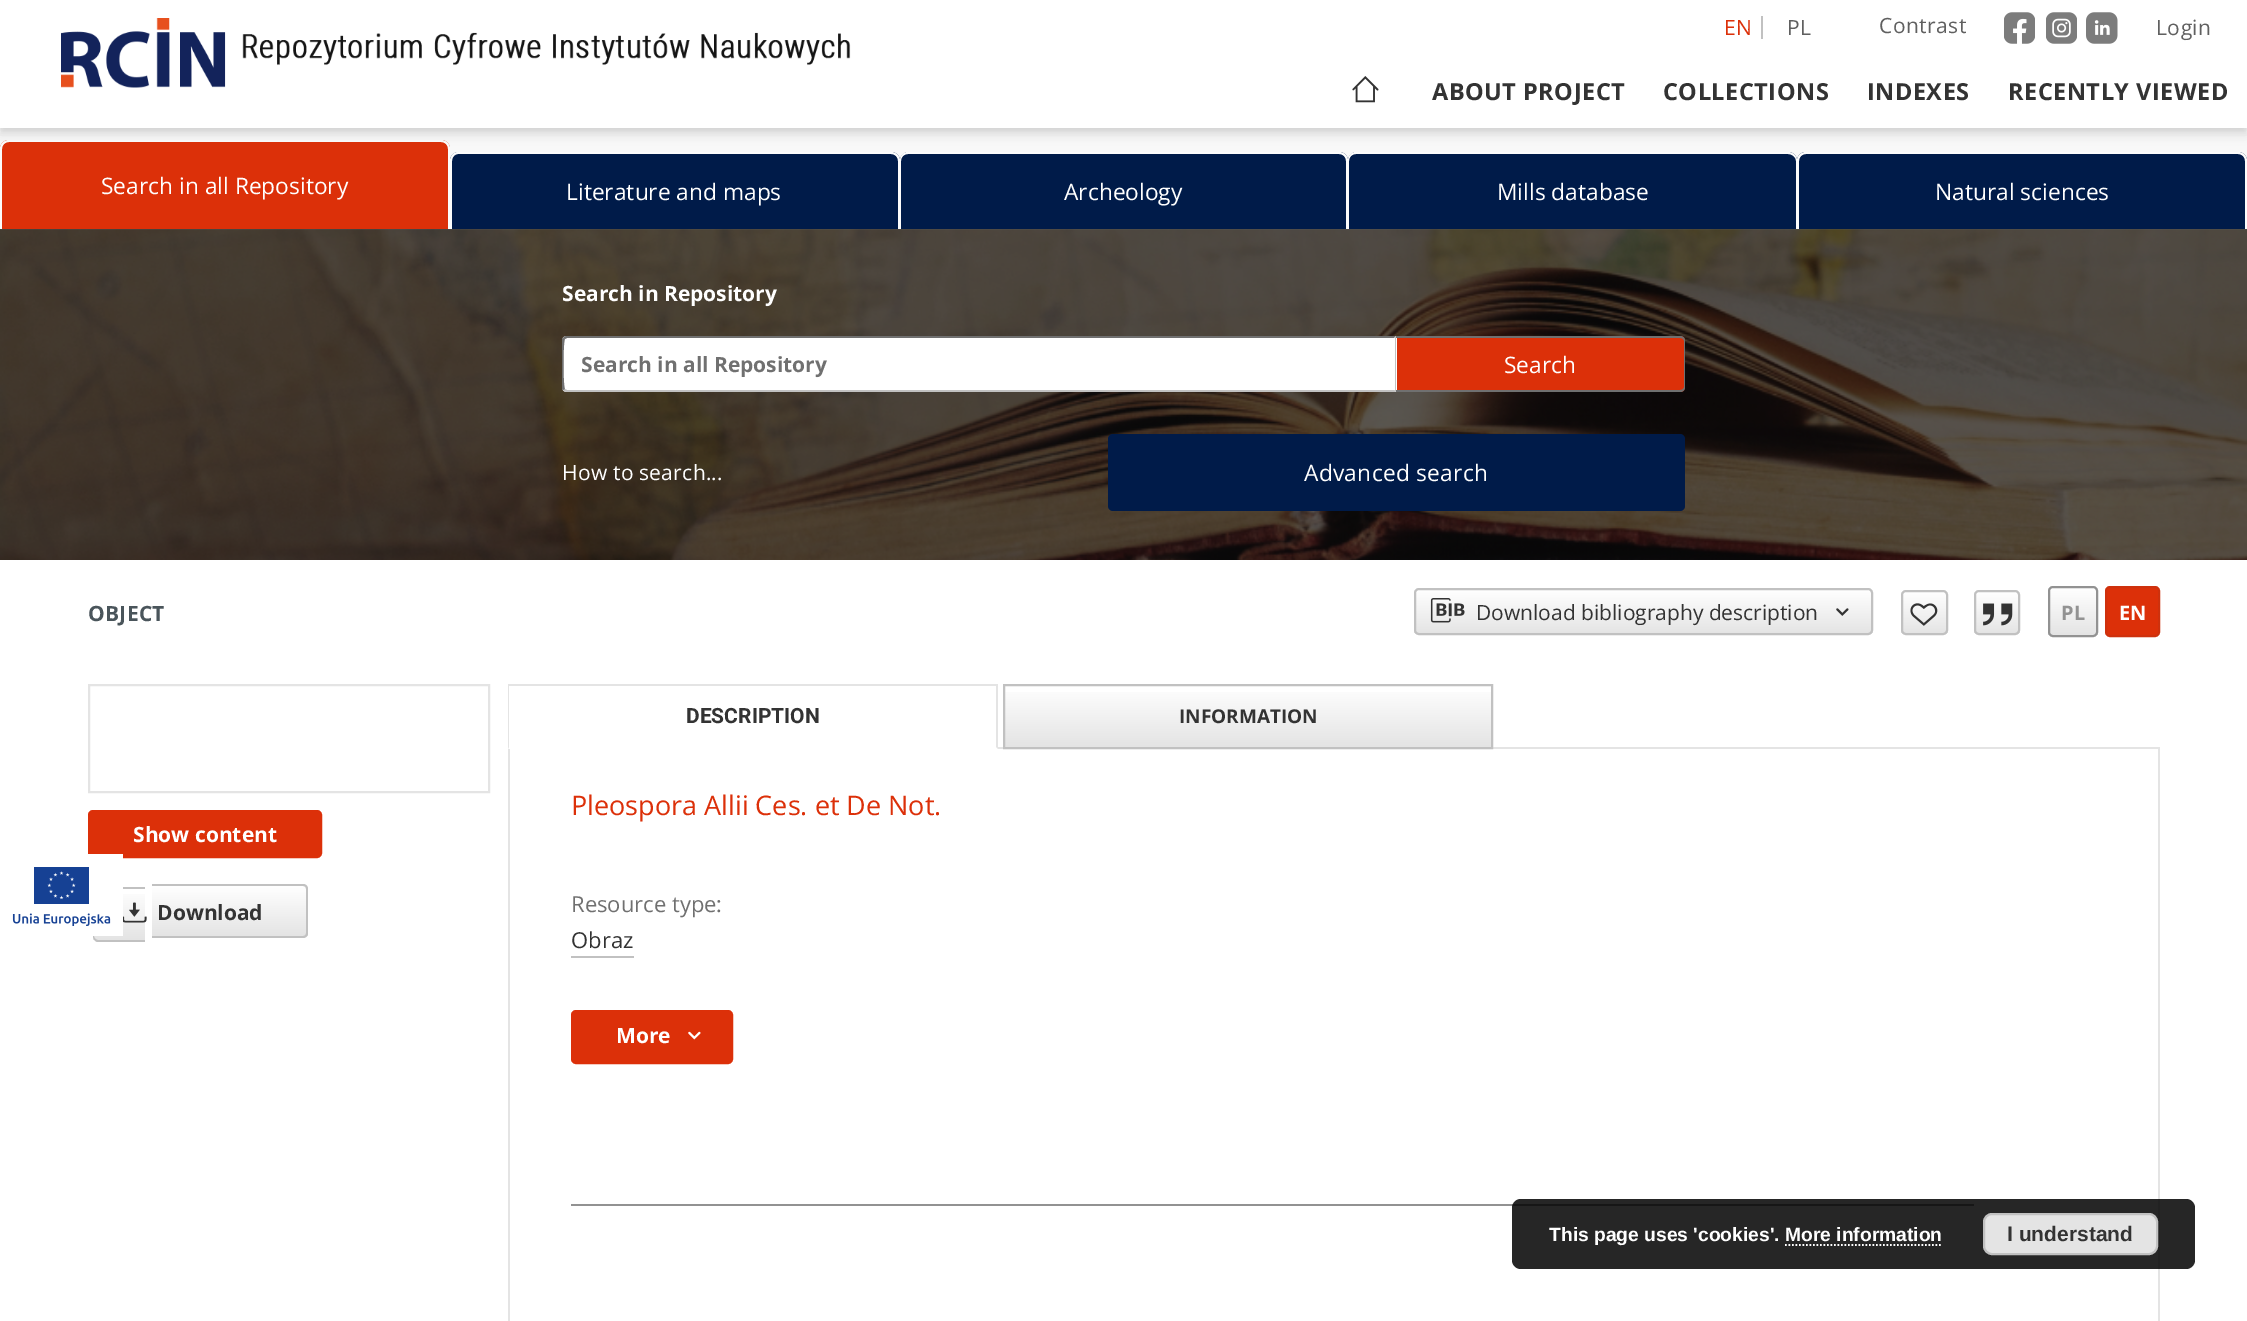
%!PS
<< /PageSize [2247 1321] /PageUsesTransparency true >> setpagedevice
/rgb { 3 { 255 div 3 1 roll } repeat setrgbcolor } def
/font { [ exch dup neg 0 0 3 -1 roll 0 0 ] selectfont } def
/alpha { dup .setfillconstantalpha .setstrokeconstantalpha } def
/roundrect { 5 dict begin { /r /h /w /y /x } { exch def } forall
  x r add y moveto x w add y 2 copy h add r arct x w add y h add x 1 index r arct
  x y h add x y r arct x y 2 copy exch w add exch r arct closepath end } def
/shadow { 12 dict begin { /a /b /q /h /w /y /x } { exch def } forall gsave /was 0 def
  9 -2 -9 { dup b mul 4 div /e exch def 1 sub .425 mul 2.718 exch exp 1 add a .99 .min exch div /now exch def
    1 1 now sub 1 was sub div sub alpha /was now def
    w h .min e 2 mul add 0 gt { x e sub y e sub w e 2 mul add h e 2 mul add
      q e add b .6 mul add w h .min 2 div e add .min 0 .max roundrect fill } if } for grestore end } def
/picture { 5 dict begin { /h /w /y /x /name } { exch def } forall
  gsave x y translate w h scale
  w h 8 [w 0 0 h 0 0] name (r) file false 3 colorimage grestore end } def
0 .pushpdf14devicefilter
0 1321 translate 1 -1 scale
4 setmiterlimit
249 249 249 rgb
0 0 2247 1321 rectfill
220 48 9 rgb
9 140 moveto 441 140 lineto 446 140 450 144 450 149 curveto 450 229 lineto 0 229 lineto 0 149 lineto 0 144 4 140 9 140 curveto closepath fill
252 252 252 rgb
9 140 moveto 441 140 lineto 446 140 450 144 450 149 curveto 450 229 lineto 0 229 lineto 0 149 lineto 0 144 4 140 9 140 curveto closepath 9 142 moveto 441 142 lineto 445 142 448 145 448 149 curveto 448 229 lineto 2 229 lineto 2 149 lineto 2 145 5 142 9 142 curveto closepath eofill
0 27 73 rgb
459 152 moveto 891 152 lineto 896 152 900 156 900 161 curveto 900 229 lineto 450 229 lineto 450 161 lineto 450 156 454 152 459 152 curveto closepath fill
252 252 252 rgb
458 152 moveto 891 152 lineto 896 152 900 156 900 161 curveto 900 229 lineto 450 229 lineto 450 161 lineto 450 156 454 152 458 152 curveto closepath 458 154 moveto 891 154 lineto 895 154 898 157 898 161 curveto 898 229 lineto 452 229 lineto 452 161 lineto 452 157 455 154 458 154 curveto closepath eofill
0 27 73 rgb
909 152 moveto 1339 152 lineto 1344 152 1348 156 1348 161 curveto 1348 229 lineto 900 229 lineto 900 161 lineto 900 156 904 152 909 152 curveto closepath fill
252 252 252 rgb
908 152 moveto 1339 152 lineto 1344 152 1348 156 1348 161 curveto 1348 229 lineto 900 229 lineto 900 161 lineto 900 156 903 152 908 152 curveto closepath 908 154 moveto 1339 154 lineto 1343 154 1346 157 1346 161 curveto 1346 229 lineto 901 229 lineto 901 161 lineto 901 157 904 154 908 154 curveto closepath eofill
0 27 73 rgb
1357 152 moveto 1788 152 lineto 1793 152 1797 156 1797 161 curveto 1797 229 lineto 1348 229 lineto 1348 161 lineto 1348 156 1352 152 1357 152 curveto closepath fill
252 252 252 rgb
1356 152 moveto 1788 152 lineto 1793 152 1797 156 1797 161 curveto 1797 229 lineto 1348 229 lineto 1348 161 lineto 1348 156 1351 152 1356 152 curveto closepath 1356 154 moveto 1788 154 lineto 1792 154 1796 157 1796 161 curveto 1796 229 lineto 1349 229 lineto 1349 161 lineto 1349 157 1352 154 1356 154 curveto closepath eofill
0 27 73 rgb
1806 152 moveto 2238 152 lineto 2243 152 2247 156 2247 161 curveto 2247 229 lineto 1797 229 lineto 1797 161 lineto 1797 156 1801 152 1806 152 curveto closepath fill
252 252 252 rgb
1806 152 moveto 2238 152 lineto 2243 152 2247 156 2247 161 curveto 2247 229 lineto 1797 229 lineto 1797 161 lineto 1797 156 1801 152 1806 152 curveto closepath 1806 154 moveto 2238 154 lineto 2242 154 2245 157 2245 161 curveto 2245 229 lineto 1799 229 lineto 1799 161 lineto 1799 157 1802 154 1806 154 curveto closepath eofill
0 0 0 rgb
0 2 2247 128 0 9 0.08 shadow
0 7 2247 128 0 4.5 0.06 shadow
2 5 2243 125 0 3.5 0.06 shadow
255 255 255 rgb
0 0 2247 128 rectfill
193 193 193 rgb
1761 16 2 23 rectfill
(img/1.rgb) 2004 12 31 32 picture
(img/2.rgb) 2046 12 31 32 picture
(img/3.rgb) 2086 12 32 32 picture
(img/4.rgb) 61 18 790 70 picture
(img/5.rgb) 1352 76 27 27 picture
(img/6.rgb) 0 229 2247 331 picture
255 255 255 rgb
567 336 moveto 1397 336 lineto 1397 392 lineto 567 392 lineto 564 392 562 390 562 387 curveto 562 341 lineto 562 338 564 336 567 336 curveto closepath fill
112 112 112 rgb
567 336 moveto 565 336 564 337 563 338 curveto 565 339 lineto 567 338 lineto 1394 338 lineto 1396 336 lineto closepath fill
193 193 193 rgb
1396 336 moveto 1396 392 lineto 1394 390 lineto 1395 390 lineto 1395 338 lineto 1394 338 lineto closepath fill
567 392 moveto 1396 392 lineto 1394 390 lineto 567 390 lineto 565 389 lineto 563 390 lineto 564 391 565 392 567 392 curveto closepath fill
112 112 112 rgb
563 338 moveto 562 338 562 340 562 341 curveto 562 387 lineto 562 388 562 390 563 390 curveto 565 389 lineto 563 388 563 340 565 339 curveto closepath fill
220 48 9 rgb
1397 336 moveto 1680 336 lineto 1683 336 1685 338 1685 341 curveto 1685 387 lineto 1685 390 1683 392 1680 392 curveto 1397 392 lineto closepath fill
112 112 112 rgb
1396 336 moveto 1680 336 lineto 1683 336 1685 338 1685 341 curveto 1685 387 lineto 1685 390 1683 392 1680 392 curveto 1396 392 lineto closepath 1396 338 moveto 1680 338 lineto 1682 338 1684 339 1684 341 curveto 1684 387 lineto 1684 389 1682 390 1680 390 curveto 1396 390 lineto closepath eofill
0 27 73 rgb
1108 434 577 77 5 roundrect fill
255 255 255 rgb
0 560 2247 761 rectfill
220 48 9 rgb
89 811 232 46 4 roundrect gsave fill grestore
2 setlinewidth
stroke
gsave 93 894 moveto 145 894 lineto 145 940 lineto 93 940 lineto closepath clip newpath
<< /ShadingType 2 /ColorSpace /DeviceRGB /Coords [120 889 120 940] /Extend [true true] /Function << /FunctionType 2 /Domain [0 1] /C0 [1 1 1] /C1 [0.894 0.894 0.894] /N 1 >> >> shfill grestore
193 193 193 rgb
98 887 moveto 145 887 lineto 145 942 lineto 98 942 lineto 95 942 93 939 93 936 curveto 93 892 lineto 93 890 95 887 98 887 curveto closepath 98 889 moveto 145 889 lineto 145 940 lineto 98 940 lineto 96 940 94 938 94 936 curveto 94 892 lineto 94 891 96 889 98 889 curveto closepath eofill
(img/7.rgb) 12 854 111 82 picture
gsave
1414 588 459 47 5 roundrect clip newpath
gsave 1414 590 moveto 1873 590 lineto 1873 634 lineto 1414 634 lineto closepath clip newpath
<< /ShadingType 2 /ColorSpace /DeviceRGB /Coords [1643 590 1643 634] /Extend [true true] /Function << /FunctionType 2 /Domain [0 1] /C0 [1 1 1] /C1 [0.894 0.894 0.894] /N 1 >> >> shfill grestore
grestore
1415 589 457 45 4 roundrect stroke
(img/8.rgb) 1430 598 35 25 picture
(img/9.rgb) 1836 608 13 8 picture
gsave
1901 590 47 45 5 roundrect clip newpath
gsave 1901 592 moveto 1948 592 lineto 1948 634 lineto 1901 634 lineto closepath clip newpath
<< /ShadingType 2 /ColorSpace /DeviceRGB /Coords [1924 592 1924 634] /Extend [true true] /Function << /FunctionType 2 /Domain [0 1] /C0 [1 1 1] /C1 [0.894 0.894 0.894] /N 1 >> >> shfill grestore
grestore
1902 591 45 43 4 roundrect stroke
(img/10.rgb) 1910 603 28 23 picture
gsave
1974 590 46 45 5 roundrect clip newpath
gsave 1974 592 moveto 2020 592 lineto 2020 634 lineto 1974 634 lineto closepath clip newpath
<< /ShadingType 2 /ColorSpace /DeviceRGB /Coords [1997 592 1997 634] /Extend [true true] /Function << /FunctionType 2 /Domain [0 1] /C0 [1 1 1] /C1 [0.894 0.894 0.894] /N 1 >> >> shfill grestore
grestore
1975 591 44 43 4 roundrect stroke
(img/11.rgb) 1983 603 30 23 picture
gsave
2048 586 50 51 5 roundrect clip newpath
gsave 2048 588 moveto 2098 588 lineto 2098 635 lineto 2048 635 lineto closepath clip newpath
<< /ShadingType 2 /ColorSpace /DeviceRGB /Coords [2073 588 2073 635] /Extend [true true] /Function << /FunctionType 2 /Domain [0 1] /C0 [1 1 1] /C1 [0.894 0.894 0.894] /N 1 >> >> shfill grestore
grestore
146 146 146 rgb
2049 587 48 49 4 roundrect stroke
220 48 9 rgb
2106 587 53 49 4 roundrect gsave fill grestore
206 49 13 rgb
stroke
228 228 228 rgb
89 685 400 107 rectstroke
gsave
152 884 moveto 303 884 lineto 306 884 308 886 308 889 curveto 308 933 lineto 308 936 306 938 303 938 curveto 152 938 lineto closepath clip newpath
gsave 152 886 moveto 308 886 lineto 308 936 lineto 152 936 lineto closepath clip newpath
<< /ShadingType 2 /ColorSpace /DeviceRGB /Coords [229 886 229 936] /Extend [true true] /Function << /FunctionType 2 /Domain [0 1] /C0 [1 1 1] /C1 [0.894 0.894 0.894] /N 1 >> >> shfill grestore
grestore
193 193 193 rgb
152 884 moveto 303 884 lineto 306 884 308 886 308 889 curveto 308 933 lineto 308 936 306 938 303 938 curveto 152 938 lineto closepath 152 886 moveto 303 886 lineto 305 886 306 887 306 889 curveto 306 933 lineto 306 935 305 936 303 936 curveto 152 936 lineto closepath eofill
(img/12.rgb) 123 902 24 21 picture
228 228 228 rgb
998 747 1162 2 rectfill
508 684 490 2 rectfill
998 684 moveto 998 749 lineto 996 747 lineto 996 686 lineto closepath fill
508 749 moveto 508 684 lineto 509 686 lineto 509 747 lineto closepath fill
gsave 1005 692 moveto 1491 692 lineto 1491 747 lineto 1005 747 lineto closepath clip newpath
<< /ShadingType 2 /ColorSpace /DeviceRGB /Coords [1248 686 1248 747] /Extend [true true] /Function << /FunctionType 2 /Domain [0 1] /C0 [1 1 1] /C1 [0.894 0.894 0.894] /N 1 >> >> shfill grestore
193 193 193 rgb
1004 685 488 63 rectstroke
[
  [2158 749 2 572 228 228 228]
  [508 749 2 572 228 228 228]
  [571 956 63 2 193 193 193]
] { aload pop rgb rectfill } forall
220 48 9 rgb
572 1011 160 52 4 roundrect gsave fill grestore
stroke
(img/13.rgb) 688 1031 13 9 picture
146 146 146 rgb
571 1204 1403 2 rectfill
0.85 alpha
0 0 0 rgb
1512 1199 683 70 9 roundrect fill
1 alpha
228 228 228 rgb
1984 1214 173 40 8 roundrect gsave fill grestore
193 193 193 rgb
stroke
255 255 255 rgb
1.8 setlinewidth
[1.75 1.75] 0 setdash
1785 1245 moveto 1942.5 1245 lineto stroke
/OpenSans-Regular 21 font
220 48 9 rgb
1724 35 moveto 0.5 0 (EN) ashow
96 96 96 rgb
1787 35 moveto 0.5 0 (PL) ashow
1879 33 moveto 0.5 0 (Contrast) ashow
2156 35 moveto 0.5 0 (Login) ashow
/OpenSans-Bold 23.5 font
51 51 51 rgb
1432 100 moveto 0.5 0 (ABOUT PROJECT) ashow
1663 100 moveto 0.5 0 (COLLECTIONS) ashow
1867 100 moveto 0.5 0 (INDEXES) ashow
2008 100 moveto 0.5 0 (RECENTLY VIEWED) ashow
/OpenSans-Regular 22.75 font
255 255 255 rgb
[
  [(Search in all Repository) 101 194]
  [(Literature and maps) 566 200]
  [(Archeology) 1064 200]
  [(Mills database) 1497 200]
  [(Natural sciences) 1935 200]
] { aload pop moveto show } forall
/OpenSans-Bold 21 font
562 301 moveto (Search in Repository) show
112 112 112 rgb
581 372 moveto (Search in all Repository) show
/OpenSans-Regular 22.75 font
255 255 255 rgb
1504 373 moveto (Search) show
/OpenSans-Regular 21 font
562 480 moveto 0.25 0 (How to search...) ashow
/OpenSans-Regular 22.75 font
1304 481 moveto 0.25 0 (Advanced search) ashow
/OpenSans-Bold 21 font
74 85 91 rgb
88 621 moveto 0.25 0 (OBJECT) ashow
/OpenSans-Regular 21 font
51 51 51 rgb
1476 620 moveto (Download bibliography description) show
/OpenSans-Bold 20 font
146 146 146 rgb
2061 620 moveto (PL) show
255 255 255 rgb
2119 620 moveto (EN) show
/OpenSans-Bold 21 font
133 842 moveto (Show content) show
51 51 51 rgb
157 920 moveto (Download) show
/Roboto-Bold 21 font
686 723 moveto (DESCRIPTION) show
/OpenSans-Bold 19 font
1179 723 moveto (INFORMATION) show
/OpenSans-Regular 27 font
220 48 9 rgb
571 815 moveto (Pleospora Allii Ces. et De Not.) show
/OpenSans-Regular 22 font
112 112 112 rgb
571 912 moveto (Resource type:) show
51 51 51 rgb
571 948 moveto (Obraz) show
/OpenSans-Bold 21 font
255 255 255 rgb
616 1043 moveto (More) show
/LiberationSans-Bold 19.25 font
1549 1241 moveto (This page uses 'cookies'. More information) show
/LiberationSans-Bold 21 font
51 51 51 rgb
2007 1241 moveto (I understand) show
.poppdf14devicefilter showpage
